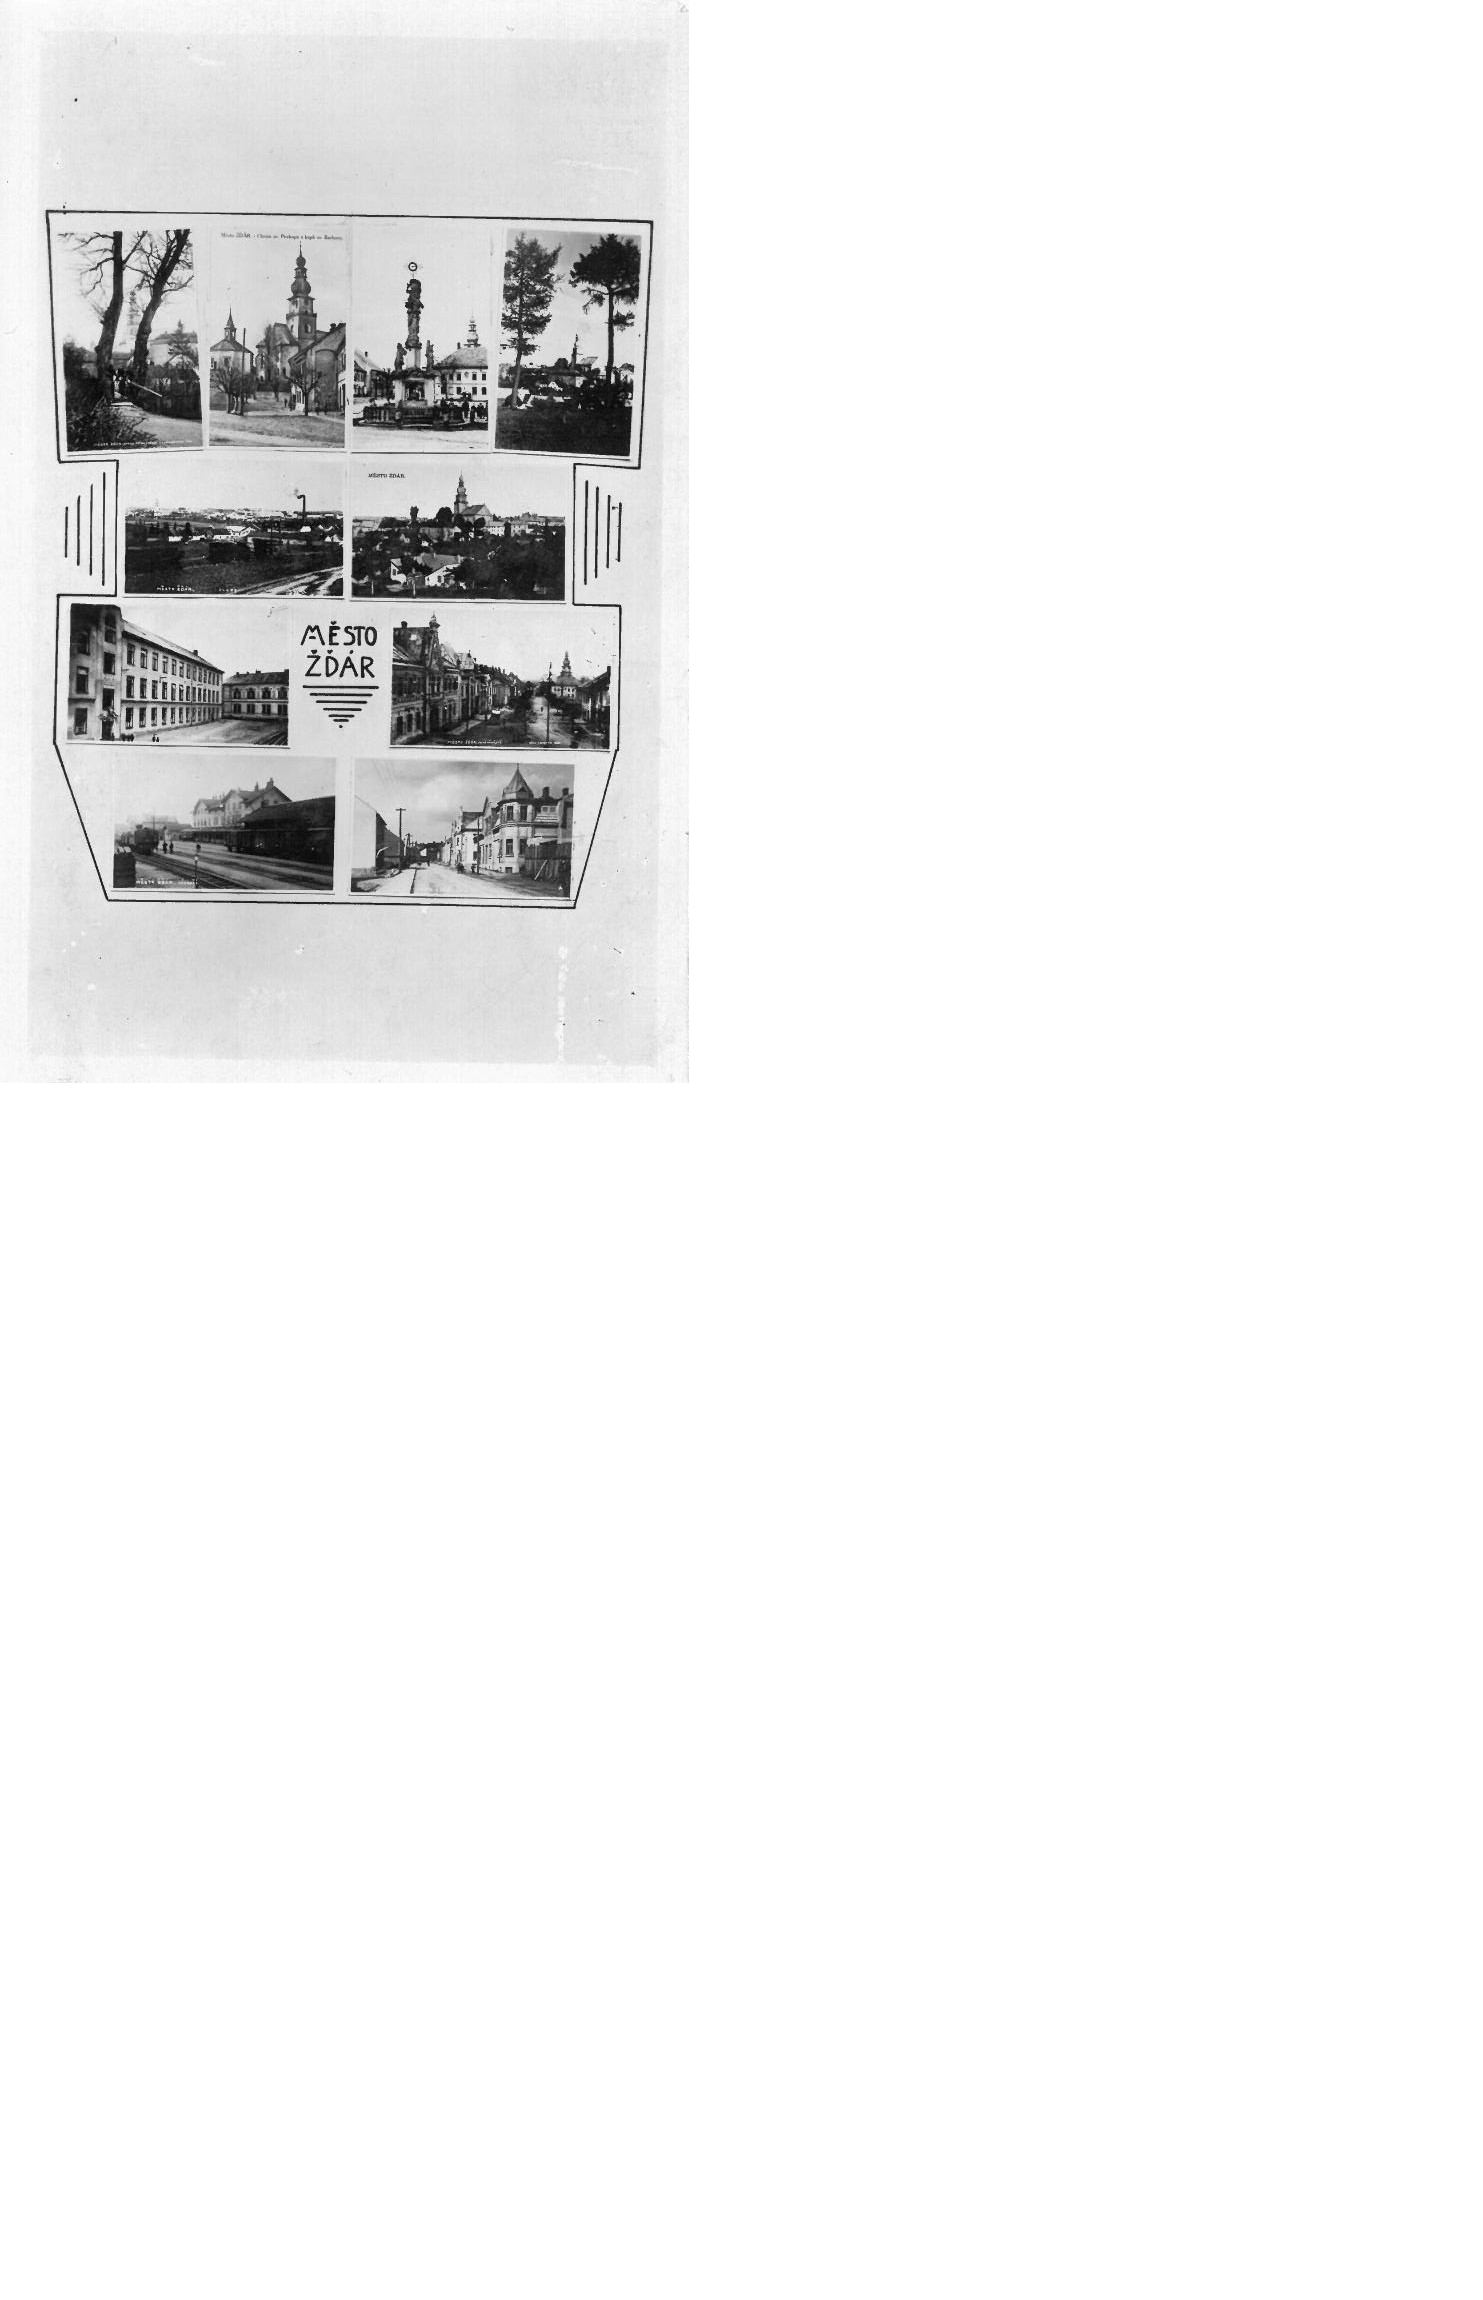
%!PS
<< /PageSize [1483 2300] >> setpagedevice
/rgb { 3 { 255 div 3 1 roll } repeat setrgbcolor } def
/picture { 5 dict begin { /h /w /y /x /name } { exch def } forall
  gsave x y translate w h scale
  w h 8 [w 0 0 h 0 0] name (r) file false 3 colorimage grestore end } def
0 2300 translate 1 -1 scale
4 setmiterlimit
255 255 255 rgb
0 0 1483 2300 rectfill
(img/1.rgb) 0 0 689 1083 picture
showpage
